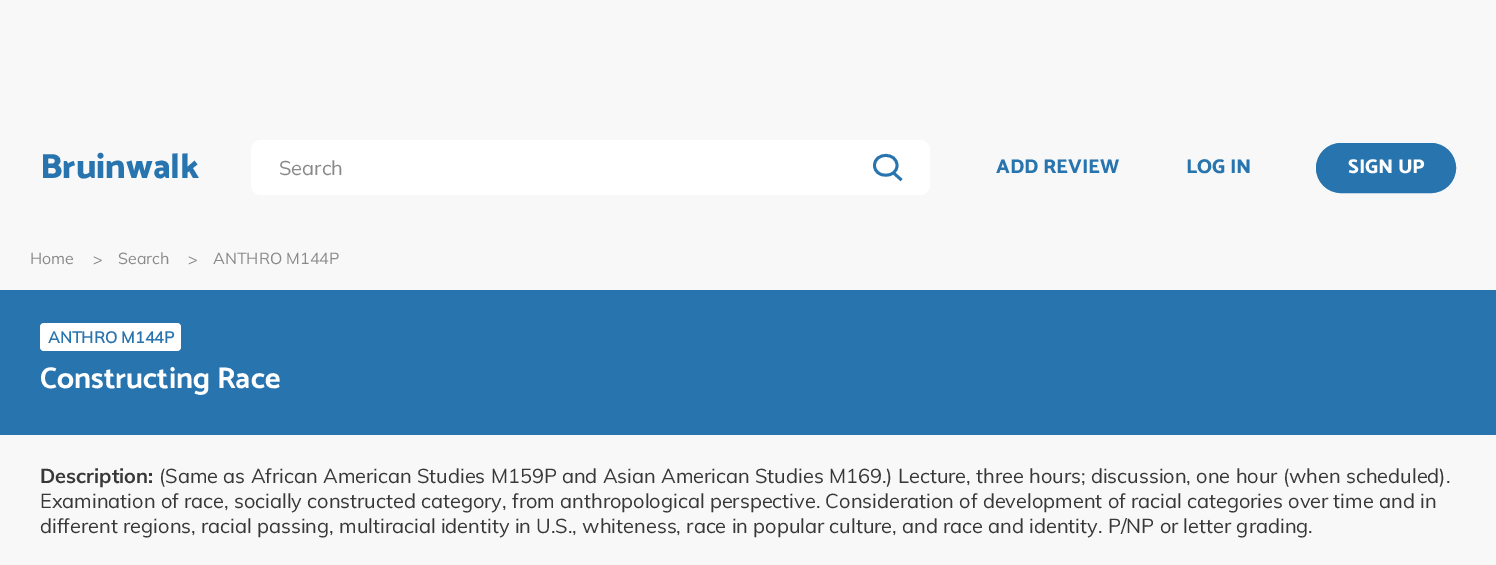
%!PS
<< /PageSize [1496 565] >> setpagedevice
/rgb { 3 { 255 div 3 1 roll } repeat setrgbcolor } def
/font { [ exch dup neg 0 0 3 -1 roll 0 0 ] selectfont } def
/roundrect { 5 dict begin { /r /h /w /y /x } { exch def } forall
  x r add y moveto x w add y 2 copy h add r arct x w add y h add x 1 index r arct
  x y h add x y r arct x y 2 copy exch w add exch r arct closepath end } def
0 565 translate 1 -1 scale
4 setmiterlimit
248 248 248 rgb
0 0 1496 565 rectfill
255 255 255 rgb
251 140 679 55 10 roundrect fill
39 116 174 rgb
2.8 setlinewidth
897 165.5 moveto 897 178.5 874.5 178.5 874.5 165.5 curveto 874.5 152 897 152 897 165.5 curveto closepath 893 172.5 moveto 901.5 180 lineto stroke
1316.5 143.5 139 49 24.5 roundrect gsave fill grestore
1 setlinewidth
stroke
0 290 1496 145 rectfill
255 255 255 rgb
40 323 141 28 4 roundrect fill
/Catamaran-ExtraBold 35 font
39 116 174 rgb
40 178 moveto (Bruinwalk) show
/Mulish-ExtraLight 20 font
137 137 137 rgb
279 175 moveto (Search) show
/Catamaran-ExtraBold 20 font
39 116 174 rgb
996 173 moveto (ADD REVIEW) show
1186 173 moveto (LOG IN) show
255 255 255 rgb
1348 173 moveto (SIGN UP) show
/Mulish-ExtraLight 16 font
137 137 137 rgb
[
  [(Home) 30 264]
  [(>) 93 265]
  [(Search) 118 264]
  [(>) 188 265]
  [(ANTHRO M144P) 213 264]
] { aload pop moveto show } forall
/Mulish-Bold 16 font
39 116 174 rgb
48 343 moveto (ANTHRO M144P) show
/Catamaran-Bold 30 font
255 255 255 rgb
40 388 moveto (Constructing Race) show
/Muli-Bold 20 font
56 56 56 rgb
40 483 moveto (Description:) show
/Muli-Regular 20 font
[
  [(\(Same as African American Studies M159P and Asian American Studies M169.\) Lecture, three hours; discussion, one hour \(when scheduled\).) 159 483]
  [(Examination of race, socially constructed category, from anthropological perspective. Consideration of development of racial categories over time and in) 40 508]
  [(different regions, racial passing, multiracial identity in U.S., whiteness, race in popular culture, and race and identity. P/NP or letter grading.) 40 533]
] { aload pop moveto show } forall
showpage
